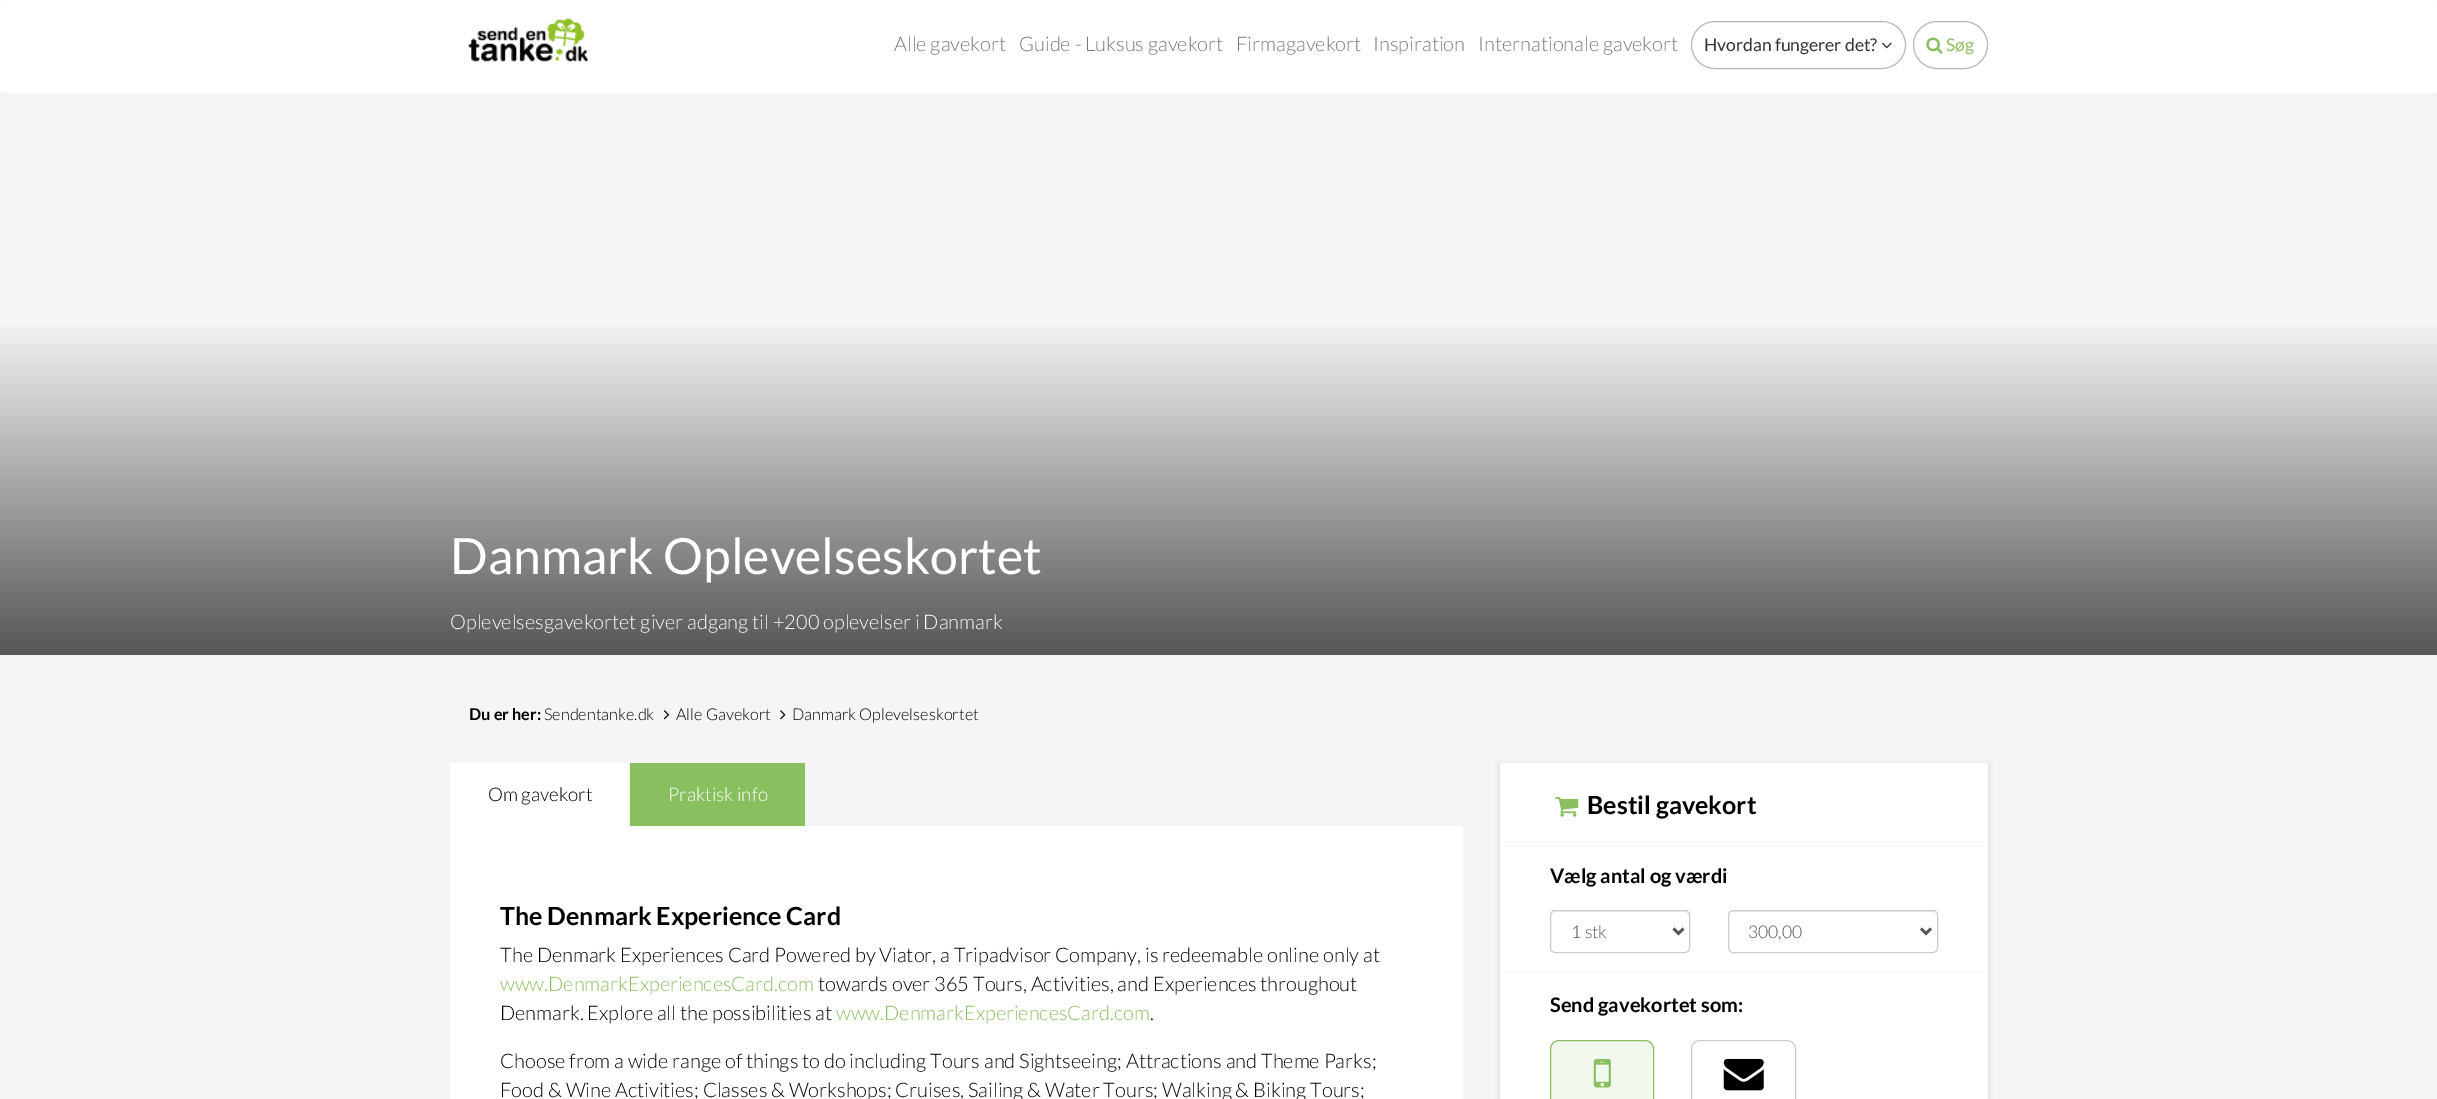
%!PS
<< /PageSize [2437 1099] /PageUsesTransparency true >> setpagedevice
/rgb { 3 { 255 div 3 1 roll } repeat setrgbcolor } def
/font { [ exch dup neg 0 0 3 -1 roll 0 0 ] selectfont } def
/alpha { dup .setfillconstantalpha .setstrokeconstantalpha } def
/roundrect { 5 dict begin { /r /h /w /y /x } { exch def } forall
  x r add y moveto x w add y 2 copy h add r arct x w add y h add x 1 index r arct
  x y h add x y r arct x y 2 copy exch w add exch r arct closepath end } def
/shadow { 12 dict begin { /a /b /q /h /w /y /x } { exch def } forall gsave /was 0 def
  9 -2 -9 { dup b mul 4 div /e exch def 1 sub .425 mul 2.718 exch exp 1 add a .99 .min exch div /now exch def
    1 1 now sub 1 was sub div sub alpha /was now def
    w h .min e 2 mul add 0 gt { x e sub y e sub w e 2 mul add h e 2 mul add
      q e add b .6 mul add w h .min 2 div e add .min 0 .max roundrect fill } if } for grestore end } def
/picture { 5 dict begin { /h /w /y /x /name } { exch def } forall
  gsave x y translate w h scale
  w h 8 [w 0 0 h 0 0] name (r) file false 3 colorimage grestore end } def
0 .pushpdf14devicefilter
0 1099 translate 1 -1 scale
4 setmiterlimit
245 245 245 rgb
0 0 2437 1099 rectfill
255 255 255 rgb
0 0 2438 93 5 roundrect fill
(img/1.rgb) 468 18 120 44 picture
184 184 184 rgb
1691.5 21.5 214 47 23.5 roundrect stroke
(img/2.rgb) 1882 42 10 7 picture
1913.5 21.5 74 47 23.5 roundrect stroke
(img/3.rgb) 1926 37 17 17 picture
gsave 0 325 moveto 2437 325 lineto 2437 655 lineto 0 655 lineto closepath clip newpath
<< /ShadingType 2 /ColorSpace /DeviceRGB /Coords [1219 92 1219 655] /Extend [true true] /Function << /FunctionType 3 /Domain [0 1] /Functions [<< /FunctionType 2 /Domain [0 1] /C0 [0.965 0.965 0.965] /C1 [0.965 0.965 0.965] /N 1 >> << /FunctionType 2 /Domain [0 1] /C0 [0.965 0.965 0.965] /C1 [0.337 0.337 0.337] /N 1 >>] /Bounds [0.4] /Encode [0 1 0 1] >> >> shfill grestore
(img/4.rgb) 663 710 7 10 picture
(img/5.rgb) 780 710 6 10 picture
[
  [450 763 179 63 255 255 255]
  [630 763 175 63 138 191 95]
  [450 826 1013 273 255 255 255]
] { aload pop rgb rectfill } forall
0 0 0 rgb
1500 765 488 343 0 3 0.15 shadow
255 255 255 rgb
1500 763 488 336 rectfill
245 245 245 rgb
1500 841 488 1 rectfill
(img/6.rgb) 1555 797 24 20 picture
1500 971 488 1 rectfill
236 236 236 rgb
1555 912 moveto 1685 912 lineto 1687 912 1689 914 1689 916 curveto 1689 915 lineto 1689 913 1687 911 1685 911 curveto 1555 911 lineto 1553 911 1551 913 1551 915 curveto 1551 916 lineto 1551 914 1553 912 1555 912 curveto closepath fill
204 204 204 rgb
1550.5 910.5 139 42 4.5 roundrect stroke
85 85 85 rgb
2.5 setlinewidth
1673.5 928.5 moveto 1678.5 933.5 lineto 1683.5 928.5 lineto stroke
236 236 236 rgb
1732 912 moveto 1932 912 lineto 1935 912 1936 914 1936 916 curveto 1936 915 lineto 1936 913 1934 911 1932 911 curveto 1733 911 lineto 1731 911 1729 913 1729 915 curveto 1729 916 lineto 1729 914 1730 912 1732 912 curveto closepath fill
204 204 204 rgb
1 setlinewidth
1728.5 910.5 209 42 4.5 roundrect stroke
85 85 85 rgb
2.5 setlinewidth
1921 928.5 moveto 1926 933.5 lineto 1931 928.5 lineto stroke
243 248 239 rgb
1550.5 1040.5 103 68 8.5 roundrect gsave fill grestore
138 191 95 rgb
1 setlinewidth
stroke
(img/7.rgb) 1593 1058 18 30 picture
204 204 204 rgb
1691.5 1040.5 104 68 8.5 roundrect stroke
(img/8.rgb) 1723 1058 41 33 picture
/Lato-Light 20 font
119 119 119 rgb
[
  [(Alle gavekort) 894 51]
  [(Guide - Luksus gavekort) 1019 51]
  [(Firmagavekort) 1236 51]
  [(Inspiration) 1373 51]
  [(Internationale gavekort) 1478 51]
] { aload pop moveto show } forall
/Lato-Regular 17.5 font
51 51 51 rgb
1704 51 moveto (Hvordan fungerer det?) show
138 191 95 rgb
1946 51 moveto (Søg) show
/Lato-Regular 50 font
255 255 255 rgb
450 574 moveto (Danmark Oplevelseskortet) show
/Lato-Light 20 font
450 629 moveto (Oplevelsesgavekortet giver adgang til +200 oplevelser i Danmark) show
/Lato-Bold 16.25 font
0 0 0 rgb
469 720 moveto (Du er her:) show
/Lato-Light 16.25 font
[
  [(Sendentanke.dk) 544 720]
  [(Alle Gavekort) 676 720]
  [(Danmark Oplevelseskortet) 792 720]
] { aload pop moveto show } forall
/Lato-Light 18.75 font
488 801 moveto (Om gavekort) show
255 255 255 rgb
668 801 moveto (Praktisk info) show
/Lato-Bold 25 font
0 0 0 rgb
500 925 moveto (The Denmark Experience Card) show
/Lato-Light 20 font
500 962 moveto (The Denmark Experiences Card Powered by Viator, a Tripadvisor Company, is redeemable online only at) show
138 191 95 rgb
500 991 moveto (www.DenmarkExperiencesCard.com) show
0 0 0 rgb
818 991 moveto (towards over 365 Tours, Activities, and Experiences throughout) show
500 1020 moveto (Denmark. Explore all the possibilities at) show
138 191 95 rgb
836 1020 moveto (www.DenmarkExperiencesCard.com) show
0 0 0 rgb
[
  [(.) 1150 1020]
  [(Choose from a wide range of things to do including Tours and Sightseeing; Attractions and Theme Parks;) 500 1068]
  [(Food & Wine Activities; Classes & Workshops; Cruises, Sailing & Water Tours; Walking & Biking Tours;) 500 1097]
] { aload pop moveto show } forall
/Lato-Bold 25 font
1587 814 moveto (Bestil gavekort) show
/Lato-Bold 20 font
1550 883 moveto (Vælg antal og værdi) show
/Lato-Light 17.5 font
85 85 85 rgb
1571 938 moveto (1 stk) show
1748 938 moveto (300,00) show
/Lato-Bold 20 font
0 0 0 rgb
1550 1012 moveto (Send gavekortet som:) show
.poppdf14devicefilter showpage
